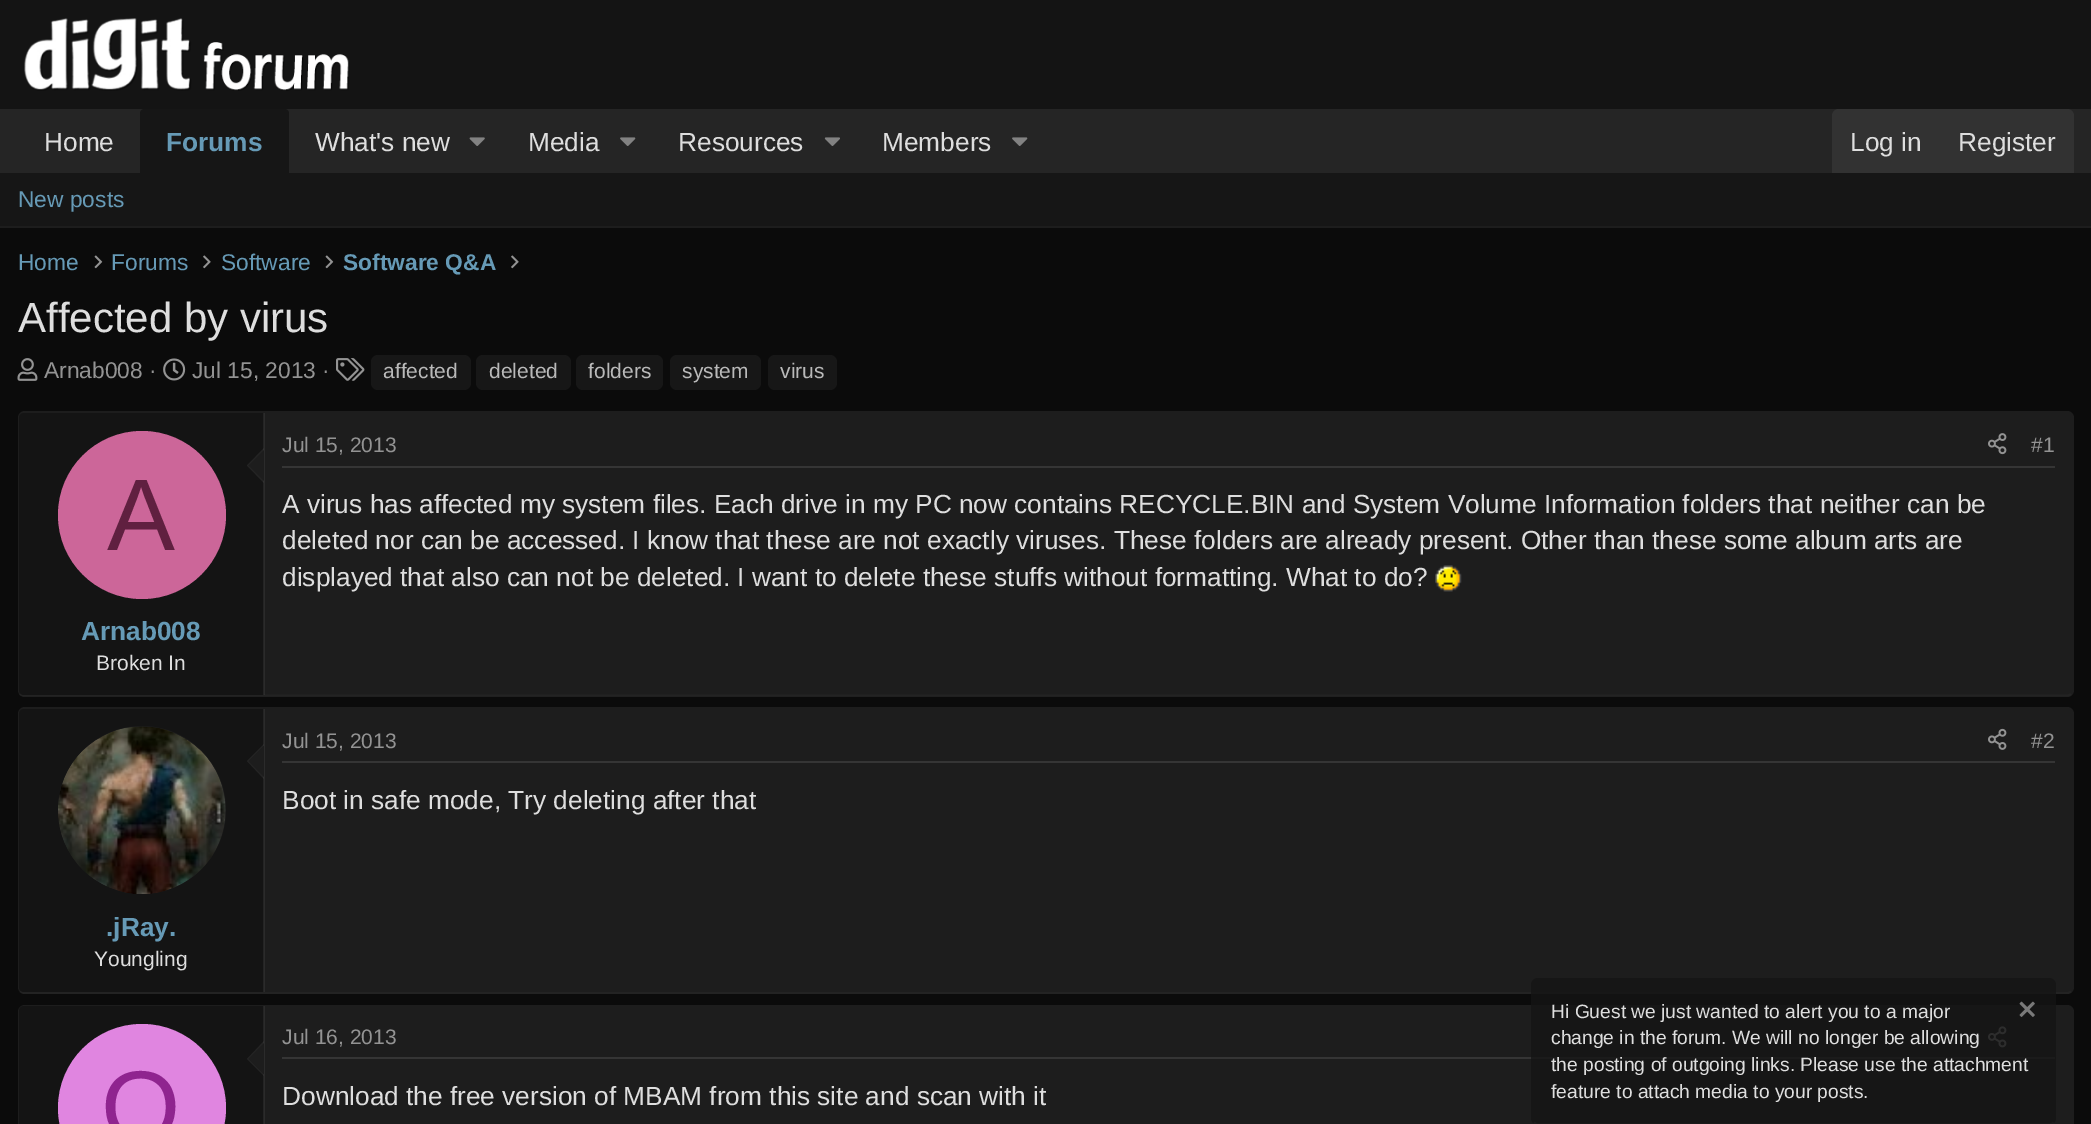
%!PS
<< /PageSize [2091 1124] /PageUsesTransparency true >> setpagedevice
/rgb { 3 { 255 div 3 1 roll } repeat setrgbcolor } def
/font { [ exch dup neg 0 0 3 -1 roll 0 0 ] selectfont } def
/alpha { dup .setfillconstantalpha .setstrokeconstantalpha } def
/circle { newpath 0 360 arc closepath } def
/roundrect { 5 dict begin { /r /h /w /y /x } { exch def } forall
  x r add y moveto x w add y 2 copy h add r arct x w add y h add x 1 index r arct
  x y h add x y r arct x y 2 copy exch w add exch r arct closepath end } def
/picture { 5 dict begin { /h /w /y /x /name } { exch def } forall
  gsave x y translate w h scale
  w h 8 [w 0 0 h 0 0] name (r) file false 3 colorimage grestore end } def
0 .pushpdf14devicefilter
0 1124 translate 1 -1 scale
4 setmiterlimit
11 11 11 rgb
0 0 2091 1124 rectfill
20 20 20 rgb
0 0 2091 109 rectfill
(img/1.rgb) 24 18 326 73 picture
37 37 37 rgb
0 109 2091 64 rectfill
22 22 22 rgb
144 109 moveto 285 109 lineto 287 109 289 111 289 113 curveto 289 173 lineto 140 173 lineto 140 113 lineto 140 111 142 109 144 109 curveto closepath fill
(img/2.rgb) 469 137 16 9 picture
(img/3.rgb) 620 137 16 9 picture
(img/4.rgb) 824 137 16 9 picture
(img/3.rgb) 1012 137 16 9 picture
50 50 50 rgb
1839 109 moveto 2067 109 lineto 2071 109 2074 112 2074 116 curveto 2074 173 lineto 1832 173 lineto 1832 116 lineto 1832 112 1835 109 1839 109 curveto closepath fill
22 22 22 rgb
0 173 2091 53 rectfill
29 29 29 rgb
0 226 2091 2 rectfill
(img/5.rgb) 94 255 9 14 picture
(img/6.rgb) 203 255 8 14 picture
(img/5.rgb) 325 255 9 14 picture
(img/6.rgb) 511 255 8 14 picture
(img/7.rgb) 17 358 21 23 picture
(img/8.rgb) 163 358 23 23 picture
(img/9.rgb) 336 358 29 23 picture
23 23 23 rgb
371 355 100 35 7 roundrect fill
476 355 95 35 7 roundrect fill
576 355 87 35 7 roundrect fill
670 355 91 35 7 roundrect fill
768 355 69 35 7 roundrect fill
29 29 29 rgb
18 411 2056 286 7 roundrect fill
35 35 35 rgb
1.8 setlinewidth
2071 694 moveto 2070 695 2068.5 695.5 2067 695.5 curveto 24.5 695.5 lineto 23 695.5 21.5 695 20 694 curveto stroke
20 20 20 rgb
24 413 moveto 264 413 lineto 264 695 lineto 24 695 lineto 21 695 19 693 19 690 curveto 19 418 lineto 19 415 21 413 24 413 curveto closepath fill
0.2 alpha
100 100 100 rgb
263 413 2 282 rectfill
264 448 moveto 264 483 lineto 247 465.5 lineto closepath fill
1 alpha
29 29 29 rgb
264 450 moveto 264 481 lineto 248.5 465.5 lineto closepath fill
204 102 153 rgb
142 515 84 circle fill
53 53 53 rgb
282 466 1773 2 rectfill
(img/10.rgb) 1988 433 19 22 picture
(img/11.rgb) 1435 565 27 27 picture
29 29 29 rgb
18 707 2056 287 7 roundrect fill
43 43 43 rgb
264 709 1 283 rectfill
0.1 alpha
90 90 90 rgb
2071 991.5 moveto 2070 992.5 2068.5 993 2067 993 curveto 24.5 993 lineto 23 993 21.5 992.5 20 991.5 curveto stroke
1 alpha
53 53 53 rgb
282 761 1773 2 rectfill
(img/12.rgb) 1988 728 19 22 picture
20 20 20 rgb
24 709 moveto 264 709 lineto 264 992 lineto 24 992 lineto 21 992 19 990 19 987 curveto 19 714 lineto 19 711 21 709 24 709 curveto closepath fill
36 36 36 rgb
263 709 1 283 rectfill
29 29 29 rgb
142 810 84 circle fill
(img/13.rgb) 58 726 168 168 picture
0.2 alpha
100 100 100 rgb
264 744 moveto 264 779 lineto 247 761 lineto closepath fill
1 alpha
29 29 29 rgb
264 745.5 moveto 264 777 lineto 248.5 761 lineto closepath fill
18 1005 2056 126 7 roundrect fill
43 43 43 rgb
264 1006 1 118 rectfill
20 20 20 rgb
24 1006 moveto 264 1006 lineto 264 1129 lineto 24 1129 lineto 21 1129 19 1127 19 1124 curveto 19 1011 lineto 19 1008 21 1006 24 1006 curveto closepath fill
36 36 36 rgb
263 1006 1 118 rectfill
0.2 alpha
100 100 100 rgb
264 1041 moveto 264 1076 lineto 247 1059 lineto closepath fill
1 alpha
29 29 29 rgb
264 1043 moveto 264 1074.5 lineto 248.5 1059 lineto closepath fill
224 133 224 rgb
142 1108 84 circle fill
53 53 53 rgb
282 1057 1773 2 rectfill
(img/14.rgb) 1988 1026 19 22 picture
0.8 alpha
20 20 20 rgb
1531 978 525 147 7 roundrect fill
0.1 alpha
90 90 90 rgb
2053.5 1122.5 moveto 2052.5 1123.5 2051 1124.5 2049 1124.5 curveto 1538 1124.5 lineto 1536.5 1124.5 1535 1123.5 1534 1122.5 curveto stroke
1 alpha
(img/15.rgb) 2019 1001 16 16 picture
/LiberationSans-Regular 26.25 font
222 222 222 rgb
44 151 moveto (Home) show
/LiberationSans-Bold 26.25 font
102 154 182 rgb
166 151 moveto (Forums) show
/LiberationSans-Regular 26.25 font
222 222 222 rgb
[
  [(What's new) 315 151]
  [(Media) 528 151]
  [(Resources) 678 151]
  [(Members) 882 151]
  [(Log in) 1850 151]
  [(Register) 1958 151]
] { aload pop moveto show } forall
/LiberationSans-Regular 22.75 font
102 154 182 rgb
[
  [(New posts) 18 207]
  [(Home) 18 270]
  [(Forums) 111 270]
  [(Software) 221 270]
] { aload pop moveto show } forall
/LiberationSans-Bold 22.75 font
343 270 moveto (Software Q&A) show
/LiberationSans-Regular 42 font
222 222 222 rgb
18 332 moveto (Affected by virus) show
/LiberationSans-Regular 22.75 font
147 147 147 rgb
44 378 moveto (Arnab008 ·) show
192 378 moveto (Jul 15, 2013 ·) show
/LiberationSans-Regular 21 font
185 185 185 rgb
[
  [(affected) 383 378]
  [(deleted) 489 378]
  [(folders) 588 378]
  [(system) 682 378]
  [(virus) 780 378]
] { aload pop moveto show } forall
/LiberationSans-Regular 102 font
96 32 64 rgb
107 550 moveto (A) show
/LiberationSans-Bold 26.25 font
102 154 182 rgb
81 640 moveto (Arnab008) show
/LiberationSans-Regular 21 font
222 222 222 rgb
96 670 moveto (Broken In) show
147 147 147 rgb
282 452 moveto (Jul 15, 2013) show
2031 452 moveto (#1) show
/LiberationSans-Regular 26.25 font
222 222 222 rgb
[
  [(A virus has affected my system files. Each drive in my PC now contains RECYCLE.BIN and System Volume Information folders that neither can be) 282 513]
  [(deleted nor can be accessed. I know that these are not exactly viruses. These folders are already present. Other than these some album arts are) 282 549]
  [(displayed that also can not be deleted. I want to delete these stuffs without formatting. What to do?) 282 586]
] { aload pop moveto show } forall
/LiberationSans-Regular 21 font
147 147 147 rgb
282 748 moveto (Jul 15, 2013) show
2031 748 moveto (#2) show
/LiberationSans-Regular 26.25 font
222 222 222 rgb
282 809 moveto (Boot in safe mode, Try deleting after that) show
/LiberationSans-Bold 26.25 font
102 154 182 rgb
106 936 moveto (.jRay.) show
/LiberationSans-Regular 21 font
222 222 222 rgb
94 966 moveto (Youngling) show
/LiberationSans-Regular 102 font
143 36 143 rgb
101 1142 moveto (O) show
/LiberationSans-Regular 21 font
147 147 147 rgb
282 1044 moveto (Jul 16, 2013) show
/LiberationSans-Regular 26.25 font
222 222 222 rgb
282 1105 moveto (Download the free version of MBAM from this site and scan with it) show
/LiberationSans-Regular 19.25 font
[
  [(Hi Guest we just wanted to alert you to a major) 1551 1018]
  [(change in the forum. We will no longer be allowing) 1551 1044]
  [(the posting of outgoing links. Please use the attachment) 1551 1071]
  [(feature to attach media to your posts.) 1551 1098]
] { aload pop moveto show } forall
.poppdf14devicefilter showpage
